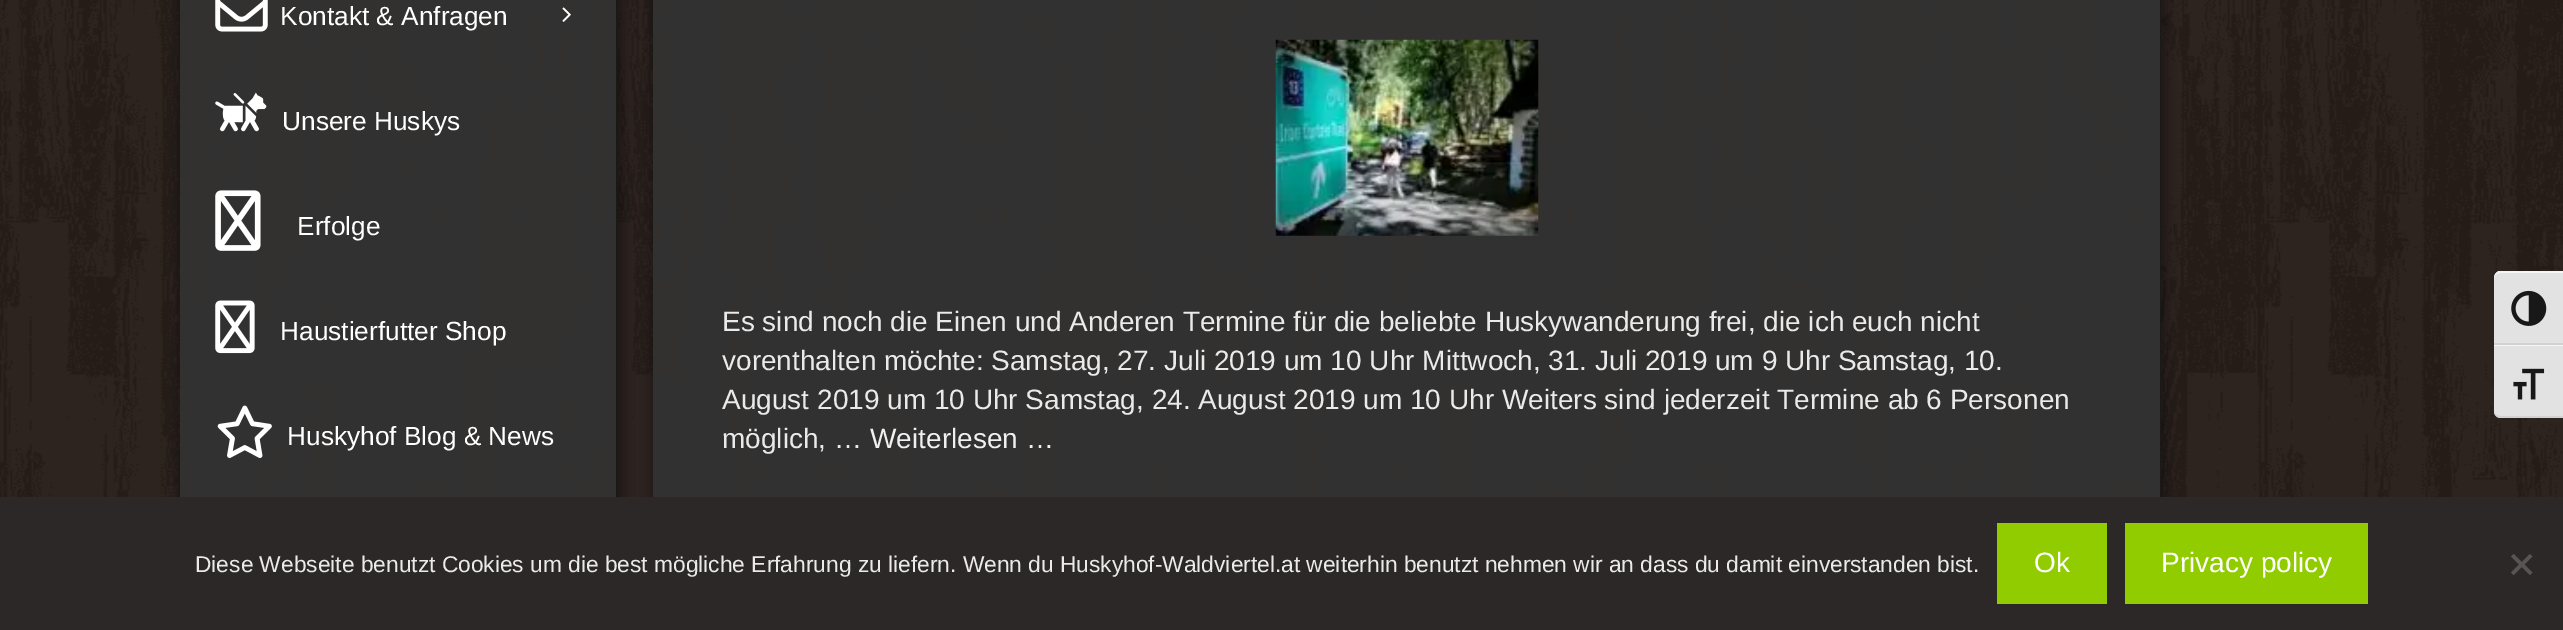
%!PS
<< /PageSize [2563 630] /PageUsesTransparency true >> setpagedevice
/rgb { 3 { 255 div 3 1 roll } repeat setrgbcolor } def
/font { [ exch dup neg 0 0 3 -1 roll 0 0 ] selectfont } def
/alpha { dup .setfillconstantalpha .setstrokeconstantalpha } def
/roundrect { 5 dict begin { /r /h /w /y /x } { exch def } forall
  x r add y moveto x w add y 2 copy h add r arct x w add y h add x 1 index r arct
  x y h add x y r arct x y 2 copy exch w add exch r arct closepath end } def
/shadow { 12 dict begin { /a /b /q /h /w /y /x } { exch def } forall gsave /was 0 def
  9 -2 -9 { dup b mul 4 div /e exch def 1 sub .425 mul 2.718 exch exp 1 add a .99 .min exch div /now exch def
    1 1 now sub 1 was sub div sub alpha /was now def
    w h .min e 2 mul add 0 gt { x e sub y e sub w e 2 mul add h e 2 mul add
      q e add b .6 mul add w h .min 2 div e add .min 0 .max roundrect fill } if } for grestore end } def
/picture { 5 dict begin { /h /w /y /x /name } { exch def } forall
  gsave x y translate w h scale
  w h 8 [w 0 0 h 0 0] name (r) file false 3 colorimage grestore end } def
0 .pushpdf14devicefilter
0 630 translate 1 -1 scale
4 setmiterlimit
255 255 255 rgb
0 0 2563 630 rectfill
(img/1.rgb) 0 0 2563 497 picture
gsave
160 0 moveto 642 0 lineto 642 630 lineto 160 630 lineto closepath 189 -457 moveto 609 -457 lineto 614 -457 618 -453 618 -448 curveto 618 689 lineto 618 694 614 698 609 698 curveto 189 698 lineto 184 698 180 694 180 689 curveto 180 -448 lineto 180 -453 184 -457 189 -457 curveto closepath eoclip newpath
0 0 0 rgb
182 -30 438 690 9 7 0.5 shadow
grestore
0.9 alpha
51 51 51 rgb
180 0 436 497 rectfill
1 alpha
25 25 24 rgb
182 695 moveto 184 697 186 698 189 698 curveto 609 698 lineto 614 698 618 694 618 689 curveto 618 -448 lineto 618 -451 616 -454 613 -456 curveto 615 -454 616 -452 616 -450 curveto 616 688 lineto 616 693 612 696 607 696 curveto 187 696 lineto 185 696 184 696 182 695 curveto closepath fill
(img/2.rgb) 215 0 53 32 picture
(img/3.rgb) 562 7 9 15 picture
(img/4.rgb) 215 92 52 40 picture
(img/5.rgb) 215 190 46 61 picture
(img/6.rgb) 215 300 40 54 picture
(img/7.rgb) 217 405 55 53 picture
gsave
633 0 moveto 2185 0 lineto 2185 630 lineto 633 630 lineto closepath 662 -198 moveto 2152 -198 lineto 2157 -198 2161 -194 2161 -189 curveto 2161 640 lineto 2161 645 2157 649 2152 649 curveto 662 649 lineto 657 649 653 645 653 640 curveto 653 -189 lineto 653 -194 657 -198 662 -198 curveto closepath eoclip newpath
0 0 0 rgb
655 -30 1508 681 9 7 0.5 shadow
grestore
0.9 alpha
51 51 51 rgb
653 0 1507 497 rectfill
1 alpha
25 25 24 rgb
657 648 moveto 658 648 660 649 662 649 curveto 2152 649 lineto 2157 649 2161 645 2161 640 curveto 2161 -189 lineto 2161 -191 2160 -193 2160 -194 curveto 2160 -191 lineto 2160 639 lineto 2160 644 2156 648 2151 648 curveto 660 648 lineto closepath fill
(img/8.rgb) 1275 39 264 197 picture
226 226 226 rgb
2501 271 moveto 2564 271 lineto 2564 345 lineto 2494 345 lineto 2494 278 lineto 2494 274 2497 271 2501 271 curveto closepath fill
245 245 245 rgb
2501 273 moveto 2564 273 lineto 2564 271 lineto 2499 271 lineto 2496 272 2494 275 2494 278 curveto 2494 275 2497 273 2501 273 curveto closepath fill
210 210 210 rgb
2494 343 69 2 rectfill
(img/9.rgb) 2511 290 36 36 picture
226 226 226 rgb
2494 345 moveto 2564 345 lineto 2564 418 lineto 2501 418 lineto 2497 418 2494 415 2494 411 curveto closepath fill
245 245 245 rgb
2494 345 69 1 rectfill
210 210 210 rgb
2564 416 moveto 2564 418 lineto 2501 418 lineto 2497 418 2494 415 2494 411 curveto 2494 414 2497 416 2501 416 curveto closepath fill
(img/10.rgb) 2513 368 32 32 picture
[
  [0 497 2563 133 45 40 40]
  [1997 523 110 81 144 204 0]
  [2125 523 243 81 144 204 0]
] { aload pop rgb rectfill } forall
87 84 84 rgb
2530 554 moveto 2532.5 556.5 lineto 2513.5 575 lineto 2511 572.5 lineto closepath fill
2511 556.5 moveto 2513.5 554 lineto 2532.5 572.5 lineto 2530 575 lineto closepath fill
/LiberationSans-Regular 26.25 font
255 255 255 rgb
[
  [(Kontakt & Anfragen) 280 25]
  [(Unsere Huskys) 282 130]
  [(Erfolge) 297 235]
  [(Haustierfutter Shop) 280 340]
  [(Huskyhof Blog & News) 287 445]
] { aload pop moveto show } forall
/LiberationSans-Regular 28 font
234 234 234 rgb
[
  [(Es sind noch die Einen und Anderen Termine für die beliebte Huskywanderung frei, die ich euch nicht) 722 331]
  [(vorenthalten möchte: Samstag, 27. Juli 2019 um 10 Uhr Mittwoch, 31. Juli 2019 um 9 Uhr Samstag, 10.) 722 370]
  [(August 2019 um 10 Uhr Samstag, 24. August 2019 um 10 Uhr Weiters sind jederzeit Termine ab 6 Personen) 722 409]
  [(möglich, …) 722 448]
] { aload pop moveto show } forall
240 240 240 rgb
870 448 moveto (Weiterlesen …) show
/LiberationSans-Regular 22.75 font
234 234 234 rgb
195 572 moveto (Diese Webseite benutzt Cookies um die best mögliche Erfahrung zu liefern. Wenn du Huskyhof-Waldviertel.at weiterhin benutzt nehmen wir an dass du damit einverstanden bist.) show
/LiberationSans-Regular 28 font
255 255 255 rgb
2034 572 moveto (Ok) show
2161 572 moveto (Privacy policy) show
.poppdf14devicefilter showpage
